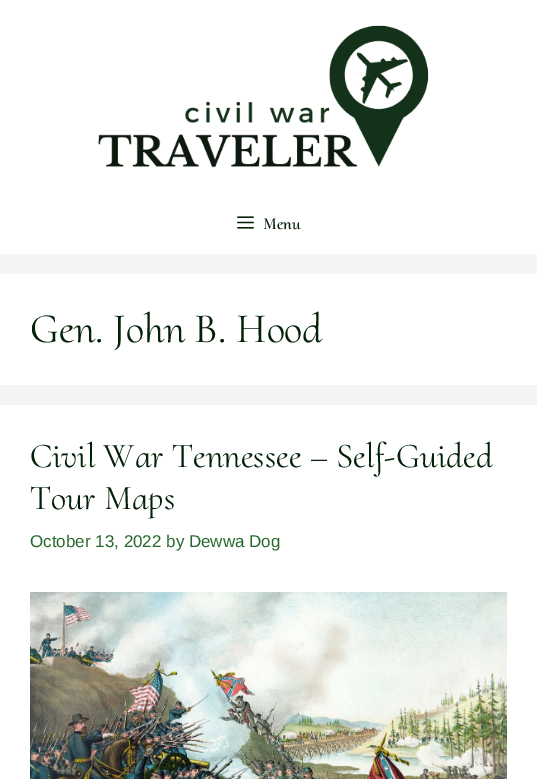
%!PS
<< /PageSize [537 779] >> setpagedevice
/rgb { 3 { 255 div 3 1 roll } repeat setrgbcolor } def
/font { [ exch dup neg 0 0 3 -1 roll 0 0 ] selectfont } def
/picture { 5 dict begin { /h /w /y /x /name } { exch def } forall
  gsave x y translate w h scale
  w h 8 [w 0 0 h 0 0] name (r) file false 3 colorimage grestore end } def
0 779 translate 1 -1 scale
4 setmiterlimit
244 244 244 rgb
0 0 537 779 rectfill
255 255 255 rgb
0 0 537 254 rectfill
(img/1.rgb) 98 25 331 143 picture
(img/2.rgb) 237 216 17 13 picture
0 274 537 111 rectfill
0 405 537 374 rectfill
(img/3.rgb) 30 592 477 187 picture
/CormorantUpright-SemiBold 17 font
3 33 9 rgb
263 229 moveto (Menu) show
/CormorantUpright-Regular 42 font
30 342 moveto (Gen. John B. Hood) show
/CormorantUpright-Regular 35 font
30 467 moveto (Civil War Tennessee – Self-Guided) show
30 509 moveto (Tour Maps) show
/LiberationSans-Regular 17 font
38 104 43 rgb
30 547 moveto (October 13, 2022 by Dewwa Dog) show
showpage
